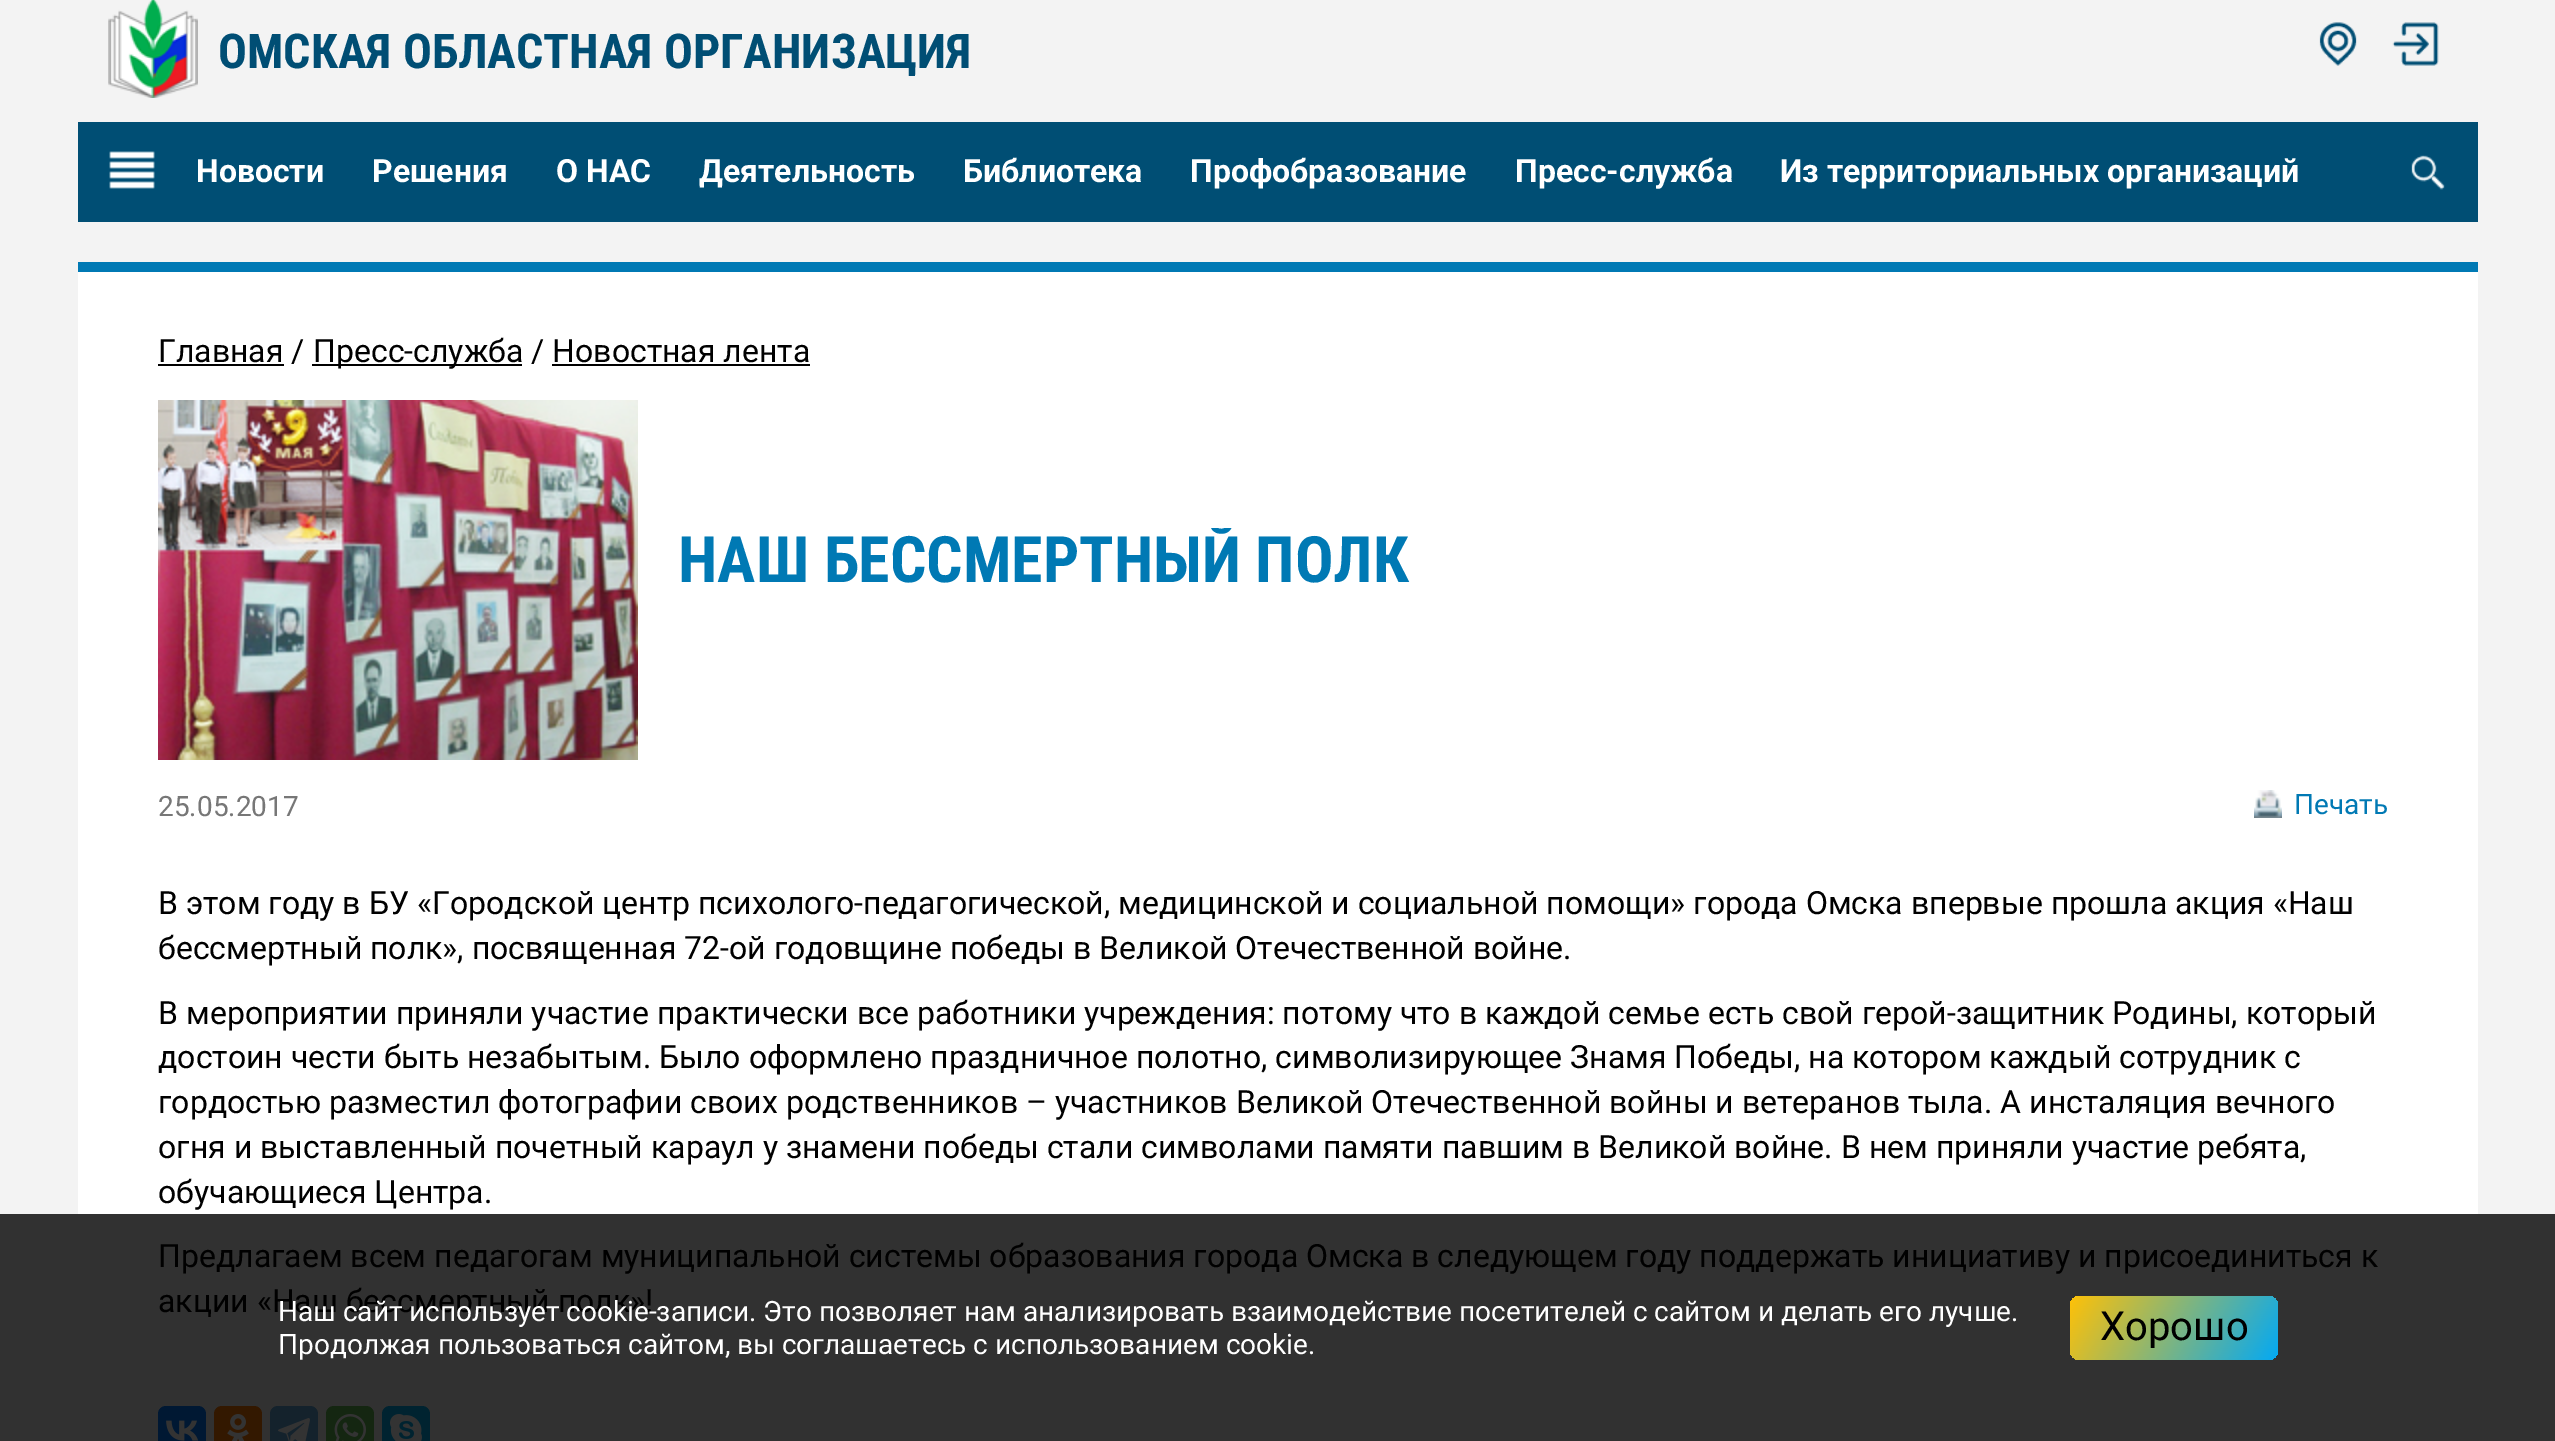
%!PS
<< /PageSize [2555 1441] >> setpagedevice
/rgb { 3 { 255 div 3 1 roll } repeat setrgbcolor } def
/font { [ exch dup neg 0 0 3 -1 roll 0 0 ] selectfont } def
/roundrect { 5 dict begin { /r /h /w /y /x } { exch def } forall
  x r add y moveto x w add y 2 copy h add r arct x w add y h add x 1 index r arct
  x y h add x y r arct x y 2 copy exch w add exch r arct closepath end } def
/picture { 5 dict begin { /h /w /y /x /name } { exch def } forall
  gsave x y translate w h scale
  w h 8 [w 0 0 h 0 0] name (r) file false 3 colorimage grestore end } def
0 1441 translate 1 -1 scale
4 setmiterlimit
243 243 243 rgb
0 0 2555 1441 rectfill
49 49 49 rgb
0 1214 2555 227 rectfill
(img/1.rgb) 108 0 90 98 picture
(img/2.rgb) 2319 22 38 44 picture
(img/3.rgb) 2392 22 47 44 picture
0 78 116 rgb
78 122 2400 100 rectfill
(img/4.rgb) 109 151 46 38 picture
(img/5.rgb) 2411 155 34 35 picture
[
  [78 272 2400 942 255 255 255]
  [78 262 2400 10 0 121 180]
  [158 364 126 2 0 0 0]
  [312 364 210 2 0 0 0]
  [552 364 258 2 0 0 0]
] { aload pop rgb rectfill } forall
(img/6.rgb) 158 400 480 360 picture
(img/7.rgb) 2254 790 28 28 picture
0 24 51 rgb
158 1406 48 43 8 roundrect fill
(img/8.rgb) 166 1420 33 21 picture
51 24 0 rgb
214 1406 48 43 8 roundrect fill
(img/9.rgb) 227 1414 22 27 picture
20 34 44 rgb
270 1406 48 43 8 roundrect fill
(img/10.rgb) 278 1418 32 23 picture
20 38 17 rgb
326 1406 48 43 8 roundrect fill
(img/11.rgb) 334 1414 32 27 picture
0 35 48 rgb
382 1406 48 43 8 roundrect fill
(img/12.rgb) 390 1414 32 27 picture
gsave 2070 1296 208 64 10 roundrect clip newpath
<< /ShadingType 2 /ColorSpace /DeviceRGB /Coords [2082 1275 2266 1381] /Extend [true true] /Function << /FunctionType 2 /Domain [0 1] /C0 [1 0.757 0.027] /C1 [0.012 0.663 0.957] /N 1 >> >> shfill grestore
gsave
218 28 752 48 rectclip
/RobotoCondensed-Bold 48 font
0 78 116 rgb
218 68 moveto (ОМСКАЯ ОБЛАСТНАЯ ОРГАНИЗАЦИЯ) show
grestore
/Roboto-Bold 32 font
255 255 255 rgb
[
  [(Новости) 196 182]
  [(Решения) 372 182]
  [(О НАС) 556 182]
  [(Деятельность) 699 182]
  [(Библиотека) 963 182]
  [(Профобразование) 1190 182]
  [(Пресс-служба) 1515 182]
  [(Из территориальных организаций) 1780 182]
] { aload pop moveto show } forall
/Roboto-Regular 32 font
0 0 0 rgb
158 362 moveto (Главная /) show
313 362 moveto (Пресс-служба / Новостная лента) show
gsave
678 528 1720 64 rectclip
/RobotoCondensed-Bold 64 font
0 121 180 rgb
678 582 moveto (НАШ БЕССМЕРТНЫЙ ПОЛК) show
grestore
/Roboto-Regular 28 font
119 119 119 rgb
158 816 moveto (25.05.2017) show
0 121 180 rgb
2294 814 moveto (Печать) show
/Roboto-Regular 32 font
0 0 0 rgb
[
  [(В этом году в БУ «Городской центр психолого-педагогической, медицинской и социальной помощи» города Омска впервые прошла акция «Наш) 158 914]
  [(бессмертный полк», посвященная 72-ой годовщине победы в Великой Отечественной войне.) 158 959]
  [(В мероприятии приняли участие практически все работники учреждения: потому что в каждой семье есть свой герой-защитник Родины, который) 158 1024]
  [(достоин чести быть незабытым. Было оформлено праздничное полотно, символизирующее Знамя Победы, на котором каждый сотрудник с) 158 1068]
  [(гордостью разместил фотографии своих родственников – участников Великой Отечественной войны и ветеранов тыла. А инсталяция вечного) 158 1113]
  [(огня и выставленный почетный караул у знамени победы стали символами памяти павшим в Великой войне. В нем приняли участие ребята,) 158 1158]
  [(обучающиеся Центра.) 158 1203]
  [(Предлагаем всем педагогам муниципальной системы образования города Омска в следующем году поддержать инициативу и присоединиться к) 158 1267]
  [(акции «Наш бессмертный полк»!) 158 1312]
] { aload pop moveto show } forall
/Roboto-Regular 28 font
255 255 255 rgb
278 1321 moveto (Наш сайт использует cookie-записи. Это позволяет нам анализировать взаимодействие посетителей с сайтом и делать его лучше.) show
278 1354 moveto (Продолжая пользоваться сайтом, вы соглашаетесь с использованием cookie.) show
/Roboto-Regular 40 font
0 0 0 rgb
2100 1340 moveto (Хорошо) show
showpage
